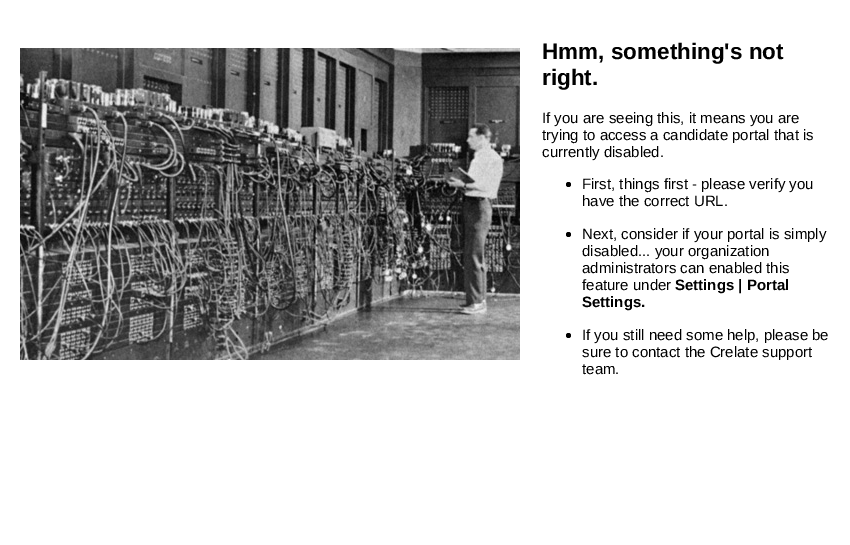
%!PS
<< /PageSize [850 545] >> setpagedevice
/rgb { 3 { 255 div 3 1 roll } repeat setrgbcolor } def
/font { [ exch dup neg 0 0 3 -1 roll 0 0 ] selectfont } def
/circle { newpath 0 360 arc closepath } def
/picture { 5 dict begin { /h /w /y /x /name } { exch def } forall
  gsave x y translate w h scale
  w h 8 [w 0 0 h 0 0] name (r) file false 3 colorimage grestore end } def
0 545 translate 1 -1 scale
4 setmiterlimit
255 255 255 rgb
0 0 850 545 rectfill
(img/1.rgb) 20 48 500 312 picture
0 0 0 rgb
568.5 184.5 2.5 circle fill
568.5 234.5 2.5 circle fill
568.5 335.5 2.5 circle fill
/LiberationSans-Bold 22.5 font
542 59 moveto (Hmm, something's not) show
542 85 moveto (right.) show
/LiberationSans-Regular 15 font
[
  [(If you are seeing this, it means you are) 542 123]
  [(trying to access a candidate portal that is) 542 140]
  [(currently disabled.) 542 157]
  [(First, things first - please verify you) 582 189]
  [(have the correct URL.) 582 206]
  [(Next, consider if your portal is simply) 582 239]
  [(disabled... your organization) 582 256]
  [(administrators can enabled this) 582 273]
  [(feature under) 582 290]
] { aload pop moveto show } forall
/LiberationSans-Bold 15 font
675 290 moveto (Settings | Portal) show
582 307 moveto (Settings.) show
/LiberationSans-Regular 15 font
[
  [(If you still need some help, please be) 582 340]
  [(sure to contact the Crelate support) 582 357]
  [(team.) 582 374]
] { aload pop moveto show } forall
showpage
